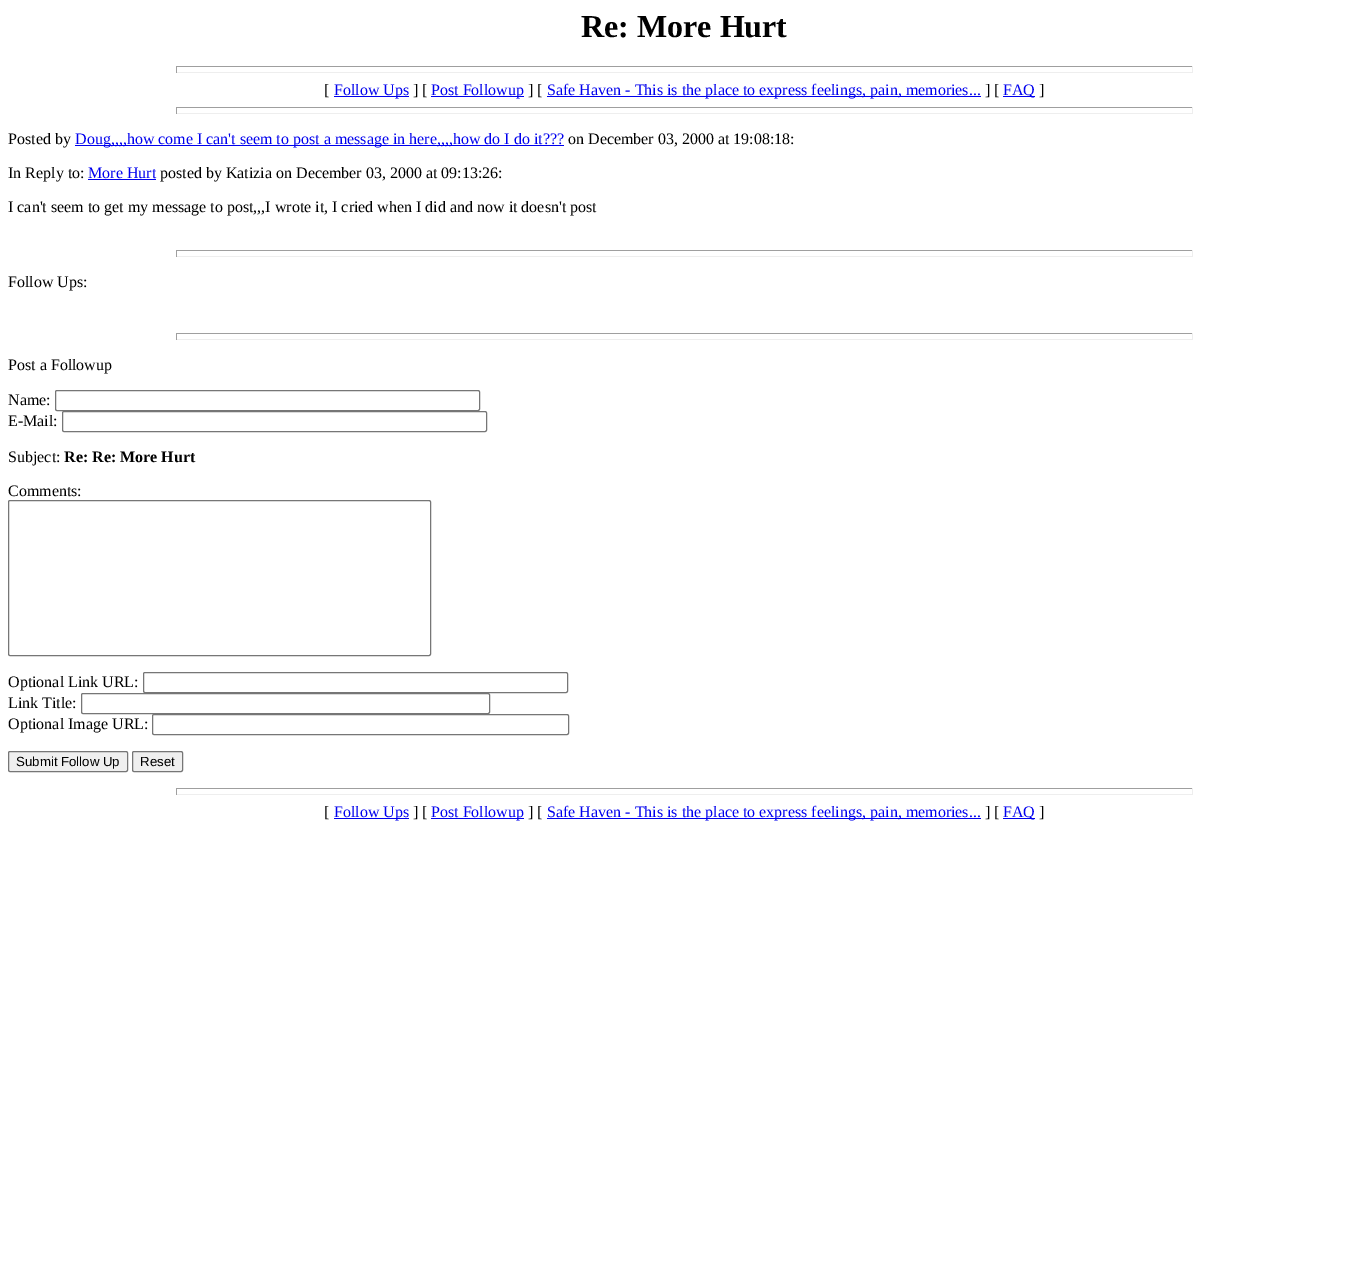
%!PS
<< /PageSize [1369 1284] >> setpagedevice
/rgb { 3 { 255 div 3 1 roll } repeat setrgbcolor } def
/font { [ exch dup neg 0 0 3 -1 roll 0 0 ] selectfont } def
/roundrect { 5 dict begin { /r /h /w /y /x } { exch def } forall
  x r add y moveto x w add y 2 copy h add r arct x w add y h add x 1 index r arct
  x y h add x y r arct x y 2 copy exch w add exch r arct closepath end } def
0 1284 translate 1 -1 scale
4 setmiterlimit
255 255 255 rgb
0 0 1369 1284 rectfill
[
  [176 66 1017 1 159 159 159]
  [1192 66 1 7 238 238 238]
  [176 72 1017 1 238 238 238]
  [176 66 1 7 159 159 159]
  [334 96 75 1 0 0 238]
  [431 96 93 1 0 0 238]
  [547 96 434 1 0 0 238]
  [1003 96 32 1 0 0 238]
  [176 107 1017 1 159 159 159]
  [1192 107 1 7 238 238 238]
  [176 113 1017 1 238 238 238]
  [176 107 1 7 159 159 159]
  [75 145 489 1 0 0 238]
  [88 179 68 1 0 0 238]
  [176 250 1017 1 159 159 159]
  [1192 250 1 7 238 238 238]
  [176 256 1017 1 238 238 238]
  [176 250 1 7 159 159 159]
  [176 333 1017 1 159 159 159]
  [1192 333 1 7 238 238 238]
  [176 339 1017 1 238 238 238]
  [176 333 1 7 159 159 159]
] { aload pop rgb rectfill } forall
118 118 118 rgb
55.5 390.5 424 20 1.5 roundrect stroke
62.5 411.5 424 20 1.5 roundrect stroke
8.5 500.5 422 155 1.5 roundrect stroke
143.5 672.5 424 20 1.5 roundrect stroke
81.5 693.5 408 20 1.5 roundrect stroke
152.5 714.5 416 20 1.5 roundrect stroke
239 239 239 rgb
8.5 751.5 119 20 1.5 roundrect gsave fill grestore
118 118 118 rgb
stroke
239 239 239 rgb
132.5 751.5 50 20 1.5 roundrect gsave fill grestore
118 118 118 rgb
stroke
[
  [176 788 1017 1 159 159 159]
  [1192 788 1 7 238 238 238]
  [176 794 1017 1 238 238 238]
  [176 788 1 7 159 159 159]
  [334 818 75 1 0 0 238]
  [431 818 93 1 0 0 238]
  [547 818 434 1 0 0 238]
  [1003 818 32 1 0 0 238]
] { aload pop rgb rectfill } forall
/LiberationSerif-Bold 32 font
0 0 0 rgb
581 37 moveto (Re: More Hurt) show
/LiberationSerif-Regular 16 font
324 95 moveto ([) show
0 0 238 rgb
334 95 moveto (Follow Ups) show
0 0 0 rgb
413 95 moveto (] [) show
0 0 238 rgb
431 95 moveto (Post Followup) show
0 0 0 rgb
528 95 moveto (] [) show
0 0 238 rgb
547 95 moveto (Safe Haven - This is the place to express feelings, pain, memories...) show
0 0 0 rgb
985 95 moveto (] [) show
0 0 238 rgb
1003 95 moveto (FAQ) show
0 0 0 rgb
1039 95 moveto (]) show
8 144 moveto (Posted by) show
0 0 238 rgb
75 144 moveto (Doug,,,,how come I can't seem to post a message in here,,,,how do I do it???) show
0 0 0 rgb
568 144 moveto (on December 03, 2000 at 19:08:18:) show
8 178 moveto (In Reply to:) show
0 0 238 rgb
88 178 moveto (More Hurt) show
0 0 0 rgb
[
  [(posted by Katizia on December 03, 2000 at 09:13:26:) 160 178]
  [(I can't seem to get my message to post,,,I wrote it, I cried when I did and now it doesn't post) 8 212]
  [(Follow Ups:) 8 287]
  [(Post a Followup) 8 370]
  [(Name:) 8 405]
  [(E-Mail:) 8 426]
  [(Subject:) 8 462]
] { aload pop moveto show } forall
/LiberationSerif-Bold 16 font
64 462 moveto (Re: Re: More Hurt) show
/LiberationSerif-Regular 16 font
[
  [(Comments:) 8 496]
  [(Optional Link URL:) 8 687]
  [(Link Title:) 8 708]
  [(Optional Image URL:) 8 729]
] { aload pop moveto show } forall
/LiberationSans-Regular 13.25 font
16 766 moveto (Submit Follow Up) show
140 766 moveto (Reset) show
/LiberationSerif-Regular 16 font
324 817 moveto ([) show
0 0 238 rgb
334 817 moveto (Follow Ups) show
0 0 0 rgb
413 817 moveto (] [) show
0 0 238 rgb
431 817 moveto (Post Followup) show
0 0 0 rgb
528 817 moveto (] [) show
0 0 238 rgb
547 817 moveto (Safe Haven - This is the place to express feelings, pain, memories...) show
0 0 0 rgb
985 817 moveto (] [) show
0 0 238 rgb
1003 817 moveto (FAQ) show
0 0 0 rgb
1039 817 moveto (]) show
showpage
